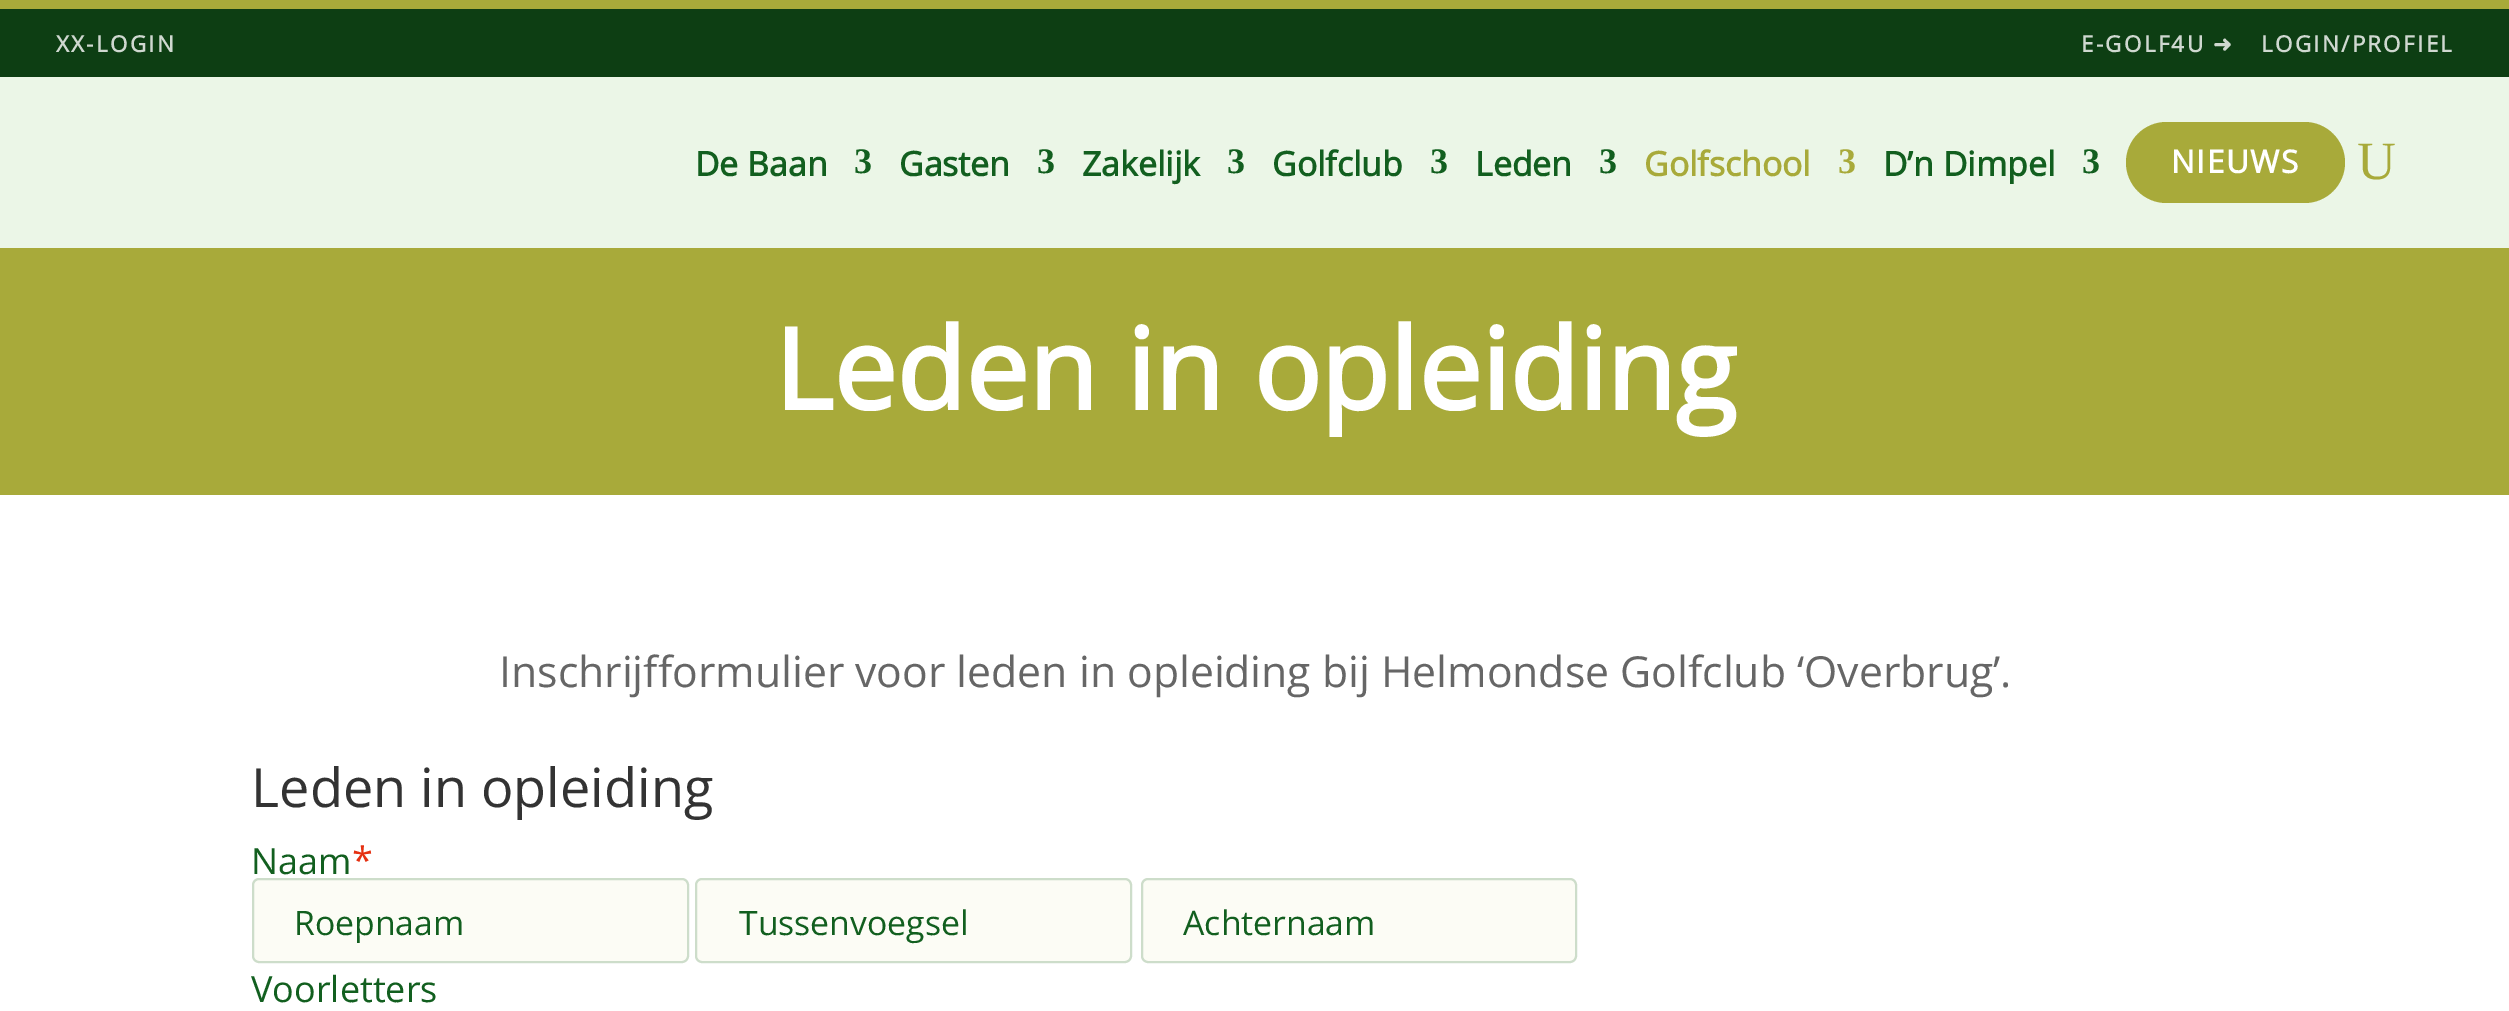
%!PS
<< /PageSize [2509 1011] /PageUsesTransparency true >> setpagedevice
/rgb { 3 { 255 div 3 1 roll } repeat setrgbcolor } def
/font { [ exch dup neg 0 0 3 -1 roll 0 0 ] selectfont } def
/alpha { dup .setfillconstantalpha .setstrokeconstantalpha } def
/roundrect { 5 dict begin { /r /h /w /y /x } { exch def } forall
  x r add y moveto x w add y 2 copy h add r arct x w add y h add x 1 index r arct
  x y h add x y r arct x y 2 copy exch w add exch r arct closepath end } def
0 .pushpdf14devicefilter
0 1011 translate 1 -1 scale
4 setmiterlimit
13 62 19 rgb
0 0 2509 1011 rectfill
168 170 58 rgb
0 0 2509 9 rectfill
235 246 231 rgb
0 77 2509 171 rectfill
168 170 58 rgb
2126 122 219 81 40.5 roundrect fill
0 248 2509 247 rectfill
255 255 255 rgb
0 495 2509 516 rectfill
252 252 245 rgb
252 878 437 85 7 roundrect fill
0.2 alpha
18 95 31 rgb
2 setlinewidth
253 879 435 83 6 roundrect stroke
1 alpha
252 252 245 rgb
695 878 437 85 7 roundrect fill
0.2 alpha
18 95 31 rgb
696 879 435 83 6 roundrect stroke
1 alpha
252 252 245 rgb
1141 878 436 85 7 roundrect fill
0.2 alpha
18 95 31 rgb
1142 879 434 83 6 roundrect stroke
/OpenSans-Bold 22.5 font
1 alpha
207 216 208 rgb
56 52 moveto 2.25 0 (XX-LOGIN) ashow
2081 52 moveto 2.25 0 (E-GOLF4U) ashow
/DejaVuSans-Bold 22.5 font
2213 52 moveto 2.25 0 (➜) ashow
/OpenSans-Bold 22.5 font
2261 52 moveto 2.25 0 (LOGIN/PROFIEL) ashow
/OpenSans-Bold 33.75 font
18 95 31 rgb
695 176 moveto (De Baan) show
/LiberationSerif-Bold 36 font
854 173 moveto (3) show
/OpenSans-Bold 33.75 font
899 176 moveto (Gasten) show
/LiberationSerif-Bold 36 font
1037 173 moveto (3) show
/OpenSans-Bold 33.75 font
1082 176 moveto (Zakelijk) show
/LiberationSerif-Bold 36 font
1227 173 moveto (3) show
/OpenSans-Bold 33.75 font
1272 176 moveto (Golfclub) show
/LiberationSerif-Bold 36 font
1430 173 moveto (3) show
/OpenSans-Bold 33.75 font
1475 176 moveto (Leden) show
/LiberationSerif-Bold 36 font
1599 173 moveto (3) show
/OpenSans-Bold 33.75 font
168 170 58 rgb
1644 176 moveto (Golfschool) show
/LiberationSerif-Bold 36 font
1838 173 moveto (3) show
/OpenSans-Bold 33.75 font
18 95 31 rgb
1883 176 moveto (D’n Dimpel) show
/LiberationSerif-Bold 36 font
2082 173 moveto (3) show
/OpenSans-Bold 31.5 font
255 255 255 rgb
2171 173 moveto 1.5 0 (NIEUWS) ashow
/LiberationSerif-Regular 54 font
168 170 58 rgb
2357 179 moveto (U) show
/OpenSans-Bold 112.5 font
255 255 255 rgb
774 410 moveto (Leden in opleiding) show
/OpenSans-Regular 42.75 font
102 102 102 rgb
499 687 moveto (Inschrijfformulier voor leden in opleiding bij Helmondse Golfclub ‘Overbrug’.) show
/OpenSans-Regular 54 font
51 51 51 rgb
251 807 moveto (Leden in opleiding) show
/OpenSans-Regular 36 font
18 95 31 rgb
251 874 moveto (Naam) show
/OpenSans-Regular 38 font
229 49 18 rgb
352 874 moveto (*) show
/OpenSans-Regular 33.75 font
18 95 31 rgb
[
  [(Roepnaam) 294 935]
  [(Tussenvoegsel) 739 935]
  [(Achternaam) 1183 935]
] { aload pop moveto show } forall
/OpenSans-Regular 36 font
251 1002 moveto (Voorletters) show
.poppdf14devicefilter showpage
